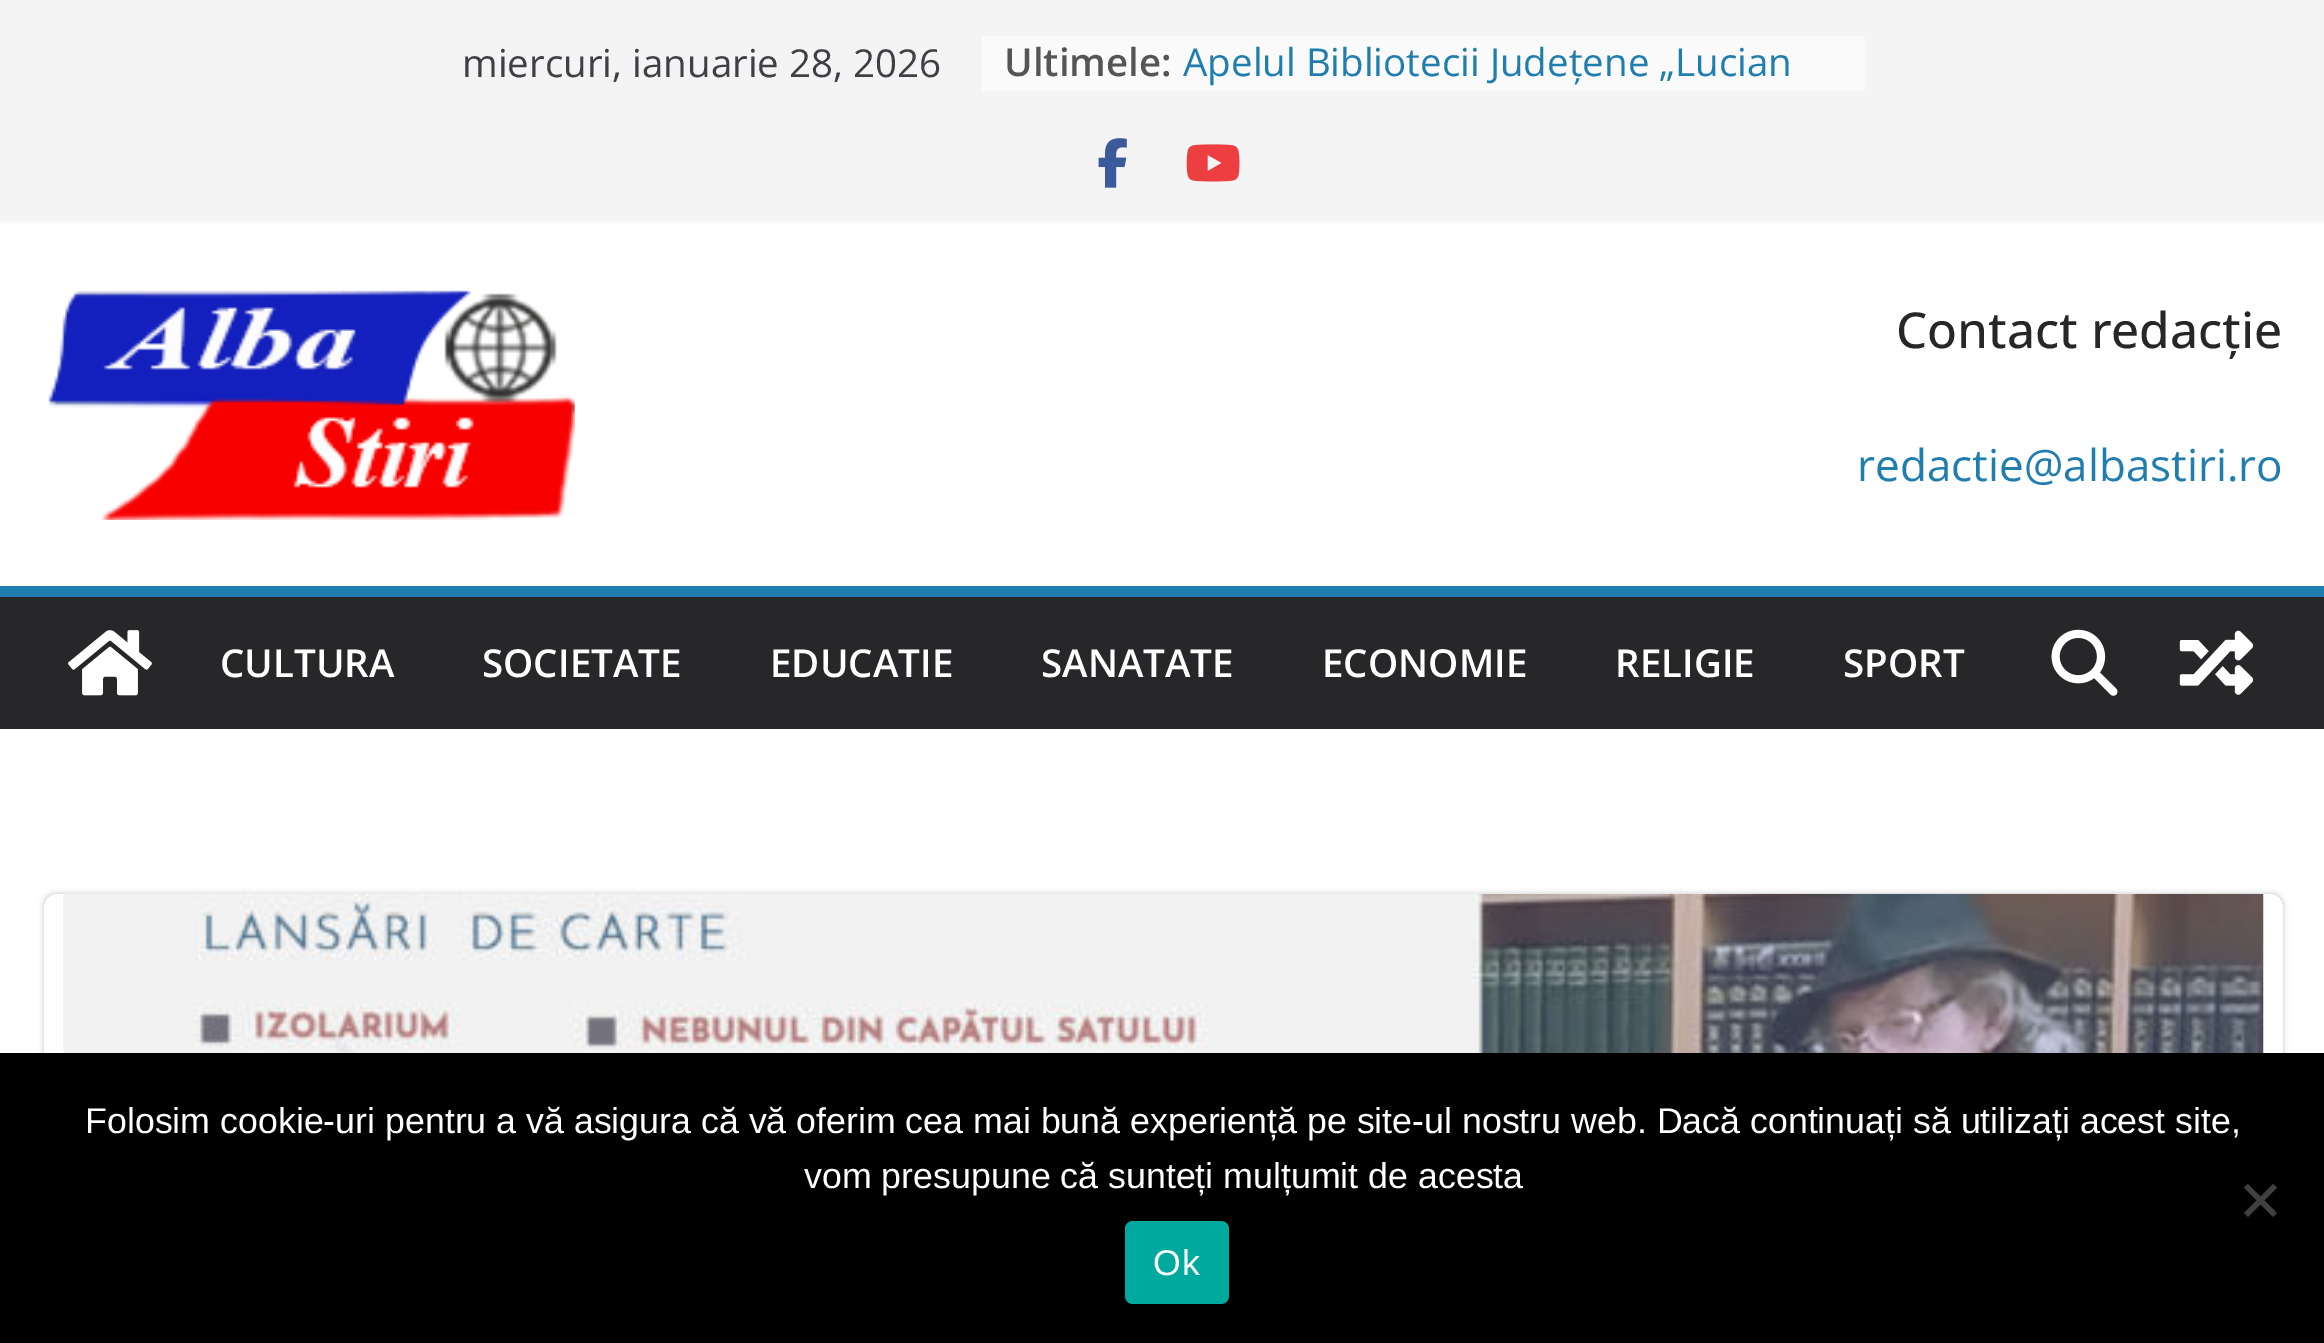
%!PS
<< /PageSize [2324 1343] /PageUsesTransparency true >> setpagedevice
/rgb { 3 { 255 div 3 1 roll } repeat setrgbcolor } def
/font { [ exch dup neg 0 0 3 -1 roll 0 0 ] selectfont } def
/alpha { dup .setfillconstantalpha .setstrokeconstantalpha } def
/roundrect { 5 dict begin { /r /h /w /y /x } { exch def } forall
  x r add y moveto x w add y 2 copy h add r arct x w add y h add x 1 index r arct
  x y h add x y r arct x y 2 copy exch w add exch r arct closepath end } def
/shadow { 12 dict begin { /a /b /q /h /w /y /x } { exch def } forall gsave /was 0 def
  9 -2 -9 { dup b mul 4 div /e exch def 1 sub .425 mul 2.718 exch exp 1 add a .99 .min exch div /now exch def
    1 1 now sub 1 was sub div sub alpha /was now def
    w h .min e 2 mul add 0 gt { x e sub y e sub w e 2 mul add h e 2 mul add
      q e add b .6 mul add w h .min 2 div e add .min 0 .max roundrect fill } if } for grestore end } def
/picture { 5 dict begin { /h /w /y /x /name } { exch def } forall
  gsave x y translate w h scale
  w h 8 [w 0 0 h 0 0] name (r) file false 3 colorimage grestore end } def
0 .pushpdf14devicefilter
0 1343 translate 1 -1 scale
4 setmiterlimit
255 255 255 rgb
0 0 2324 1343 rectfill
0 0 0 rgb
0 0 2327 220 0 3 0.1 shadow
244 244 245 rgb
0 0 2324 220 rectfill
250 250 250 rgb
982 36 883 55 rectfill
(img/1.rgb) 1098 138 29 50 picture
(img/2.rgb) 1186 144 54 38 picture
(img/3.rgb) 48 290 527 230 picture
39 39 42 rgb
0 597 2324 132 rectfill
32 125 175 rgb
0 586 2324 11 rectfill
(img/4.rgb) 68 630 84 66 picture
(img/5.rgb) 2051 629 67 67 picture
(img/6.rgb) 2179 630 75 65 picture
gsave
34 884 moveto 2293 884 lineto 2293 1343 lineto 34 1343 lineto closepath 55 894 moveto 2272 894 lineto 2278 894 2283 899 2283 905 curveto 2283 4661 lineto 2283 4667 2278 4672 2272 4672 curveto 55 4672 lineto 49 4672 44 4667 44 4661 curveto 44 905 lineto 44 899 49 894 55 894 curveto closepath eoclip newpath
0 0 0 rgb
44 894 2239 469 11 3 0.24 shadow
grestore
(img/7.rgb) 63 893 2201 160 picture
0 0 0 rgb
0 1053 2324 290 rectfill
64 64 64 rgb
2273 1184 moveto 2277 1187.5 lineto 2248 1217 lineto 2244 1213 lineto closepath fill
2244 1187.5 moveto 2248 1184 lineto 2277 1213 lineto 2273 1217 lineto closepath fill
0 169 157 rgb
1125 1221 104 83 8 roundrect fill
/OpenSans-Regular 38.5 font
63 63 70 rgb
462 77 moveto (miercuri, ianuarie 28, 2026) show
/OpenSans-SemiBold 38.5 font
85 85 85 rgb
1004 76 moveto (Ultimele:) show
/OpenSans-Regular 38.5 font
32 125 175 rgb
1183 76 moveto (Apelul Bibliotecii Județene „Lucian) show
/OpenSans-Medium 49.5 font
39 39 42 rgb
1896 348 moveto (Contact redacție) show
/OpenSans-Regular 44 font
32 125 175 rgb
1857 481 moveto (redactie@albastiri.ro) show
/OpenSans-SemiBold 38.5 font
255 255 255 rgb
[
  [(CULTURA) 220 677]
  [(SOCIETATE) 482 677]
  [(EDUCATIE) 770 677]
  [(SANATATE) 1041 677]
  [(ECONOMIE) 1322 677]
  [(RELIGIE) 1615 677]
  [(SPORT) 1843 677]
] { aload pop moveto show } forall
/LiberationSans-Regular 35.75 font
85 1133 moveto (Folosim cookie-uri pentru a vă asigura că vă oferim cea mai bună experiență pe site-ul nostru web. Dacă continuați să utilizați acest site,) show
804 1188 moveto (vom presupune că sunteți mulțumit de acesta) show
1153 1275 moveto 1 0 (Ok) ashow
.poppdf14devicefilter showpage
